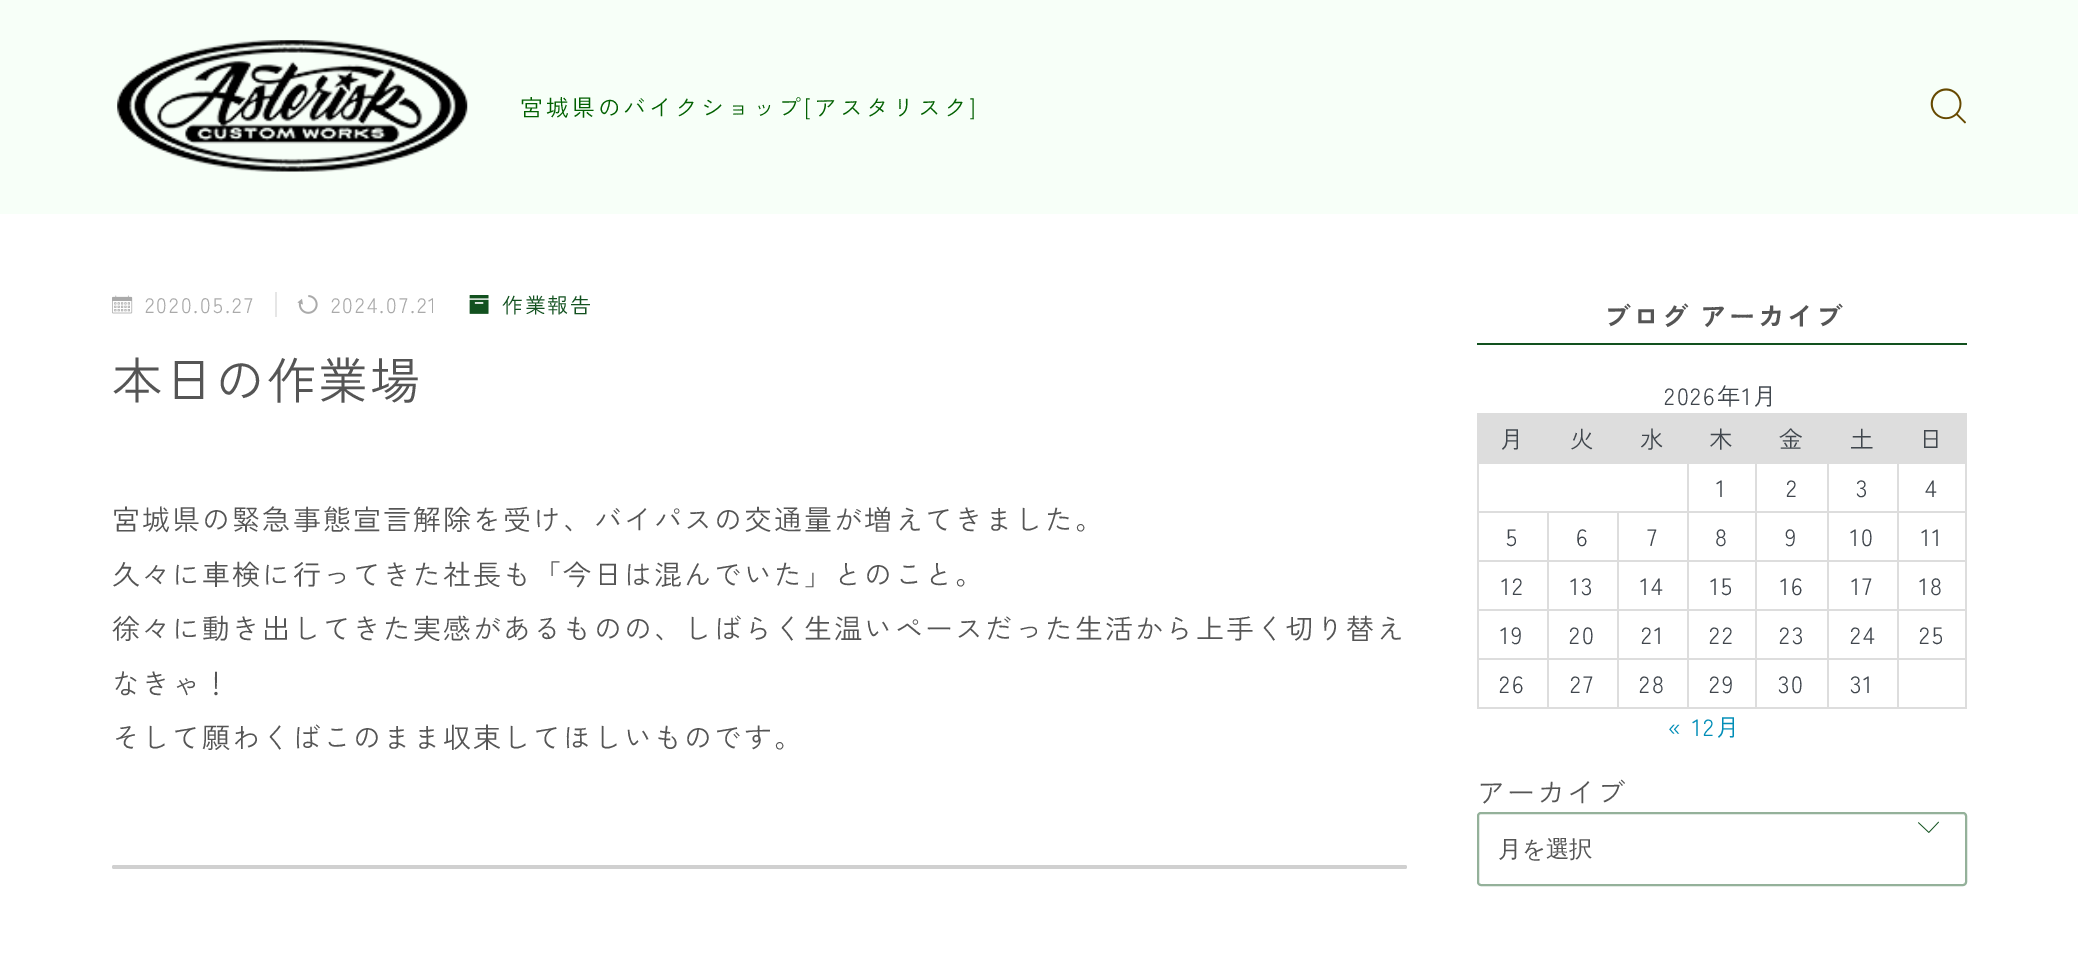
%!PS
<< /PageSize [2078 976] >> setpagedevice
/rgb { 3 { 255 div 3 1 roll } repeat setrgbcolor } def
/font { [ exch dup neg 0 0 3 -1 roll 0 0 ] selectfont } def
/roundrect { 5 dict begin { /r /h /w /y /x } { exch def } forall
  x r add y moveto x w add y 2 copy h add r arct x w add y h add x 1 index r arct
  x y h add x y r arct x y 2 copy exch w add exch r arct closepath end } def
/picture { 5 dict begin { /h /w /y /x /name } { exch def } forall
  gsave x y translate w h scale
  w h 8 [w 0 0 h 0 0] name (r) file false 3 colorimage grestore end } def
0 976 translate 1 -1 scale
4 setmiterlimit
247 255 248 rgb
0 0 2078 976 rectfill
(img/1.rgb) 117 40 351 132 picture
(img/2.rgb) 1930 88 36 36 picture
255 255 255 rgb
0 214 2078 762 rectfill
(img/3.rgb) 112 295 21 19 picture
230 230 230 rgb
275 292 2 25 rectfill
(img/4.rgb) 297 295 21 19 picture
(img/5.rgb) 469 295 20 19 picture
208 208 208 rgb
112 865 1295 4 2 roundrect fill
[
  [1477 343 490 2 18 81 31]
  [1479 415 68 47 221 221 221]
  [1547 413 420 49 221 221 221]
  [1477 413 72 2 221 221 221]
  [1897 462 70 2 221 221 221]
  [1897 511 70 2 221 221 221]
  [1897 560 70 2 221 221 221]
  [1897 609 70 2 221 221 221]
  [1897 658 70 2 221 221 221]
  [1965 658 2 51 221 221 221]
  [1897 707 70 2 221 221 221]
  [1897 658 2 51 221 221 221]
  [1827 658 72 2 221 221 221]
  [1897 609 2 51 221 221 221]
  [1827 609 72 2 221 221 221]
  [1897 560 2 51 221 221 221]
  [1827 560 72 2 221 221 221]
  [1897 511 2 51 221 221 221]
  [1827 511 72 2 221 221 221]
  [1897 462 2 51 221 221 221]
  [1827 462 72 2 221 221 221]
  [1827 707 72 2 221 221 221]
  [1827 658 2 51 221 221 221]
  [1755 658 74 2 221 221 221]
  [1827 609 2 51 221 221 221]
  [1755 609 74 2 221 221 221]
  [1827 560 2 51 221 221 221]
  [1755 560 74 2 221 221 221]
  [1827 511 2 51 221 221 221]
  [1755 511 74 2 221 221 221]
  [1827 462 2 51 221 221 221]
  [1755 462 74 2 221 221 221]
  [1755 707 74 2 221 221 221]
  [1755 658 2 51 221 221 221]
  [1687 658 70 2 221 221 221]
  [1755 609 2 51 221 221 221]
  [1687 609 70 2 221 221 221]
  [1755 560 2 51 221 221 221]
  [1687 560 70 2 221 221 221]
  [1755 511 2 51 221 221 221]
  [1687 511 70 2 221 221 221]
  [1755 462 2 51 221 221 221]
  [1687 462 70 2 221 221 221]
  [1687 707 70 2 221 221 221]
  [1687 658 2 51 221 221 221]
  [1617 658 72 2 221 221 221]
  [1687 609 2 51 221 221 221]
  [1617 609 72 2 221 221 221]
  [1687 560 2 51 221 221 221]
  [1617 560 72 2 221 221 221]
  [1687 511 2 51 221 221 221]
  [1617 511 72 2 221 221 221]
  [1687 462 2 51 221 221 221]
  [1477 462 212 2 221 221 221]
  [1617 707 72 2 221 221 221]
  [1617 658 2 51 221 221 221]
  [1547 658 72 2 221 221 221]
  [1617 609 2 51 221 221 221]
  [1547 609 72 2 221 221 221]
  [1617 560 2 51 221 221 221]
  [1547 560 72 2 221 221 221]
  [1617 511 2 51 221 221 221]
  [1547 511 72 2 221 221 221]
  [1547 707 72 2 221 221 221]
  [1547 658 2 51 221 221 221]
  [1477 658 72 2 221 221 221]
  [1547 609 2 51 221 221 221]
  [1477 609 72 2 221 221 221]
  [1547 560 2 51 221 221 221]
  [1477 560 72 2 221 221 221]
  [1547 511 2 51 221 221 221]
  [1477 511 72 2 221 221 221]
  [1477 707 72 2 221 221 221]
  [1477 658 2 51 221 221 221]
  [1477 609 2 51 221 221 221]
  [1477 560 2 51 221 221 221]
  [1477 511 2 51 221 221 221]
  [1477 462 2 51 221 221 221]
  [1477 413 2 51 221 221 221]
  [1965 609 2 51 221 221 221]
  [1965 560 2 51 221 221 221]
  [1965 511 2 51 221 221 221]
  [1965 462 2 51 221 221 221]
] { aload pop rgb rectfill } forall
148 177 154 rgb
2 setlinewidth
1478 813 488 72 3 roundrect stroke
(img/6.rgb) 1918 821 21 12 picture
/ZenKakuGothicNew-Regular 22.75 font
1 96 0 rgb
520 116 moveto 3.1 0 (宮城県のバイクショップ[アスタリスク]) ashow
/ZenKakuGothicNew-Regular 21 font
170 170 170 rgb
145 313 moveto 2.1 0 (2020.05.27) ashow
331 313 moveto 2.1 0 (2024.07.21) ashow
18 81 31 rgb
502 313 moveto 1.5 0 (作業報告) ashow
/ZenKakuGothicNew-Regular 50 font
85 85 85 rgb
112 399 moveto 1.5 0 (本日の作業場) ashow
/ZenKakuGothicNew-Regular 28 font
112 530 moveto 2.1 0 (宮城県の緊急事態宣言解除を受け、バイパスの交通量が増えてきました。) ashow
112 585 moveto 2.1 0 (久々に車検に行ってきた社長も「今日は混んでいた」とのこと。) ashow
112 639 moveto 2.1 0 (徐々に動き出してきた実感があるものの、しばらく生温いペースだった生活から上手く切り替え) ashow
112 694 moveto 2.1 0 (なきゃ！) ashow
112 748 moveto 2.1 0 (そして願わくばこのまま収束してほしいものです。) ashow
/ZenKakuGothicNew-Bold 26.25 font
1604 326 moveto 2.6 0 (ブログ アーカイブ) ashow
/ZenKakuGothicNew-Regular 23.5 font
64 70 77 rgb
1664 405 moveto 2.1 0 (2026年1月) ashow
1500 448 moveto 2.1 0 (月) ashow
1570 448 moveto 2.1 0 (火) ashow
1640 448 moveto 2.1 0 (水) ashow
1709 448 moveto 2.1 0 (木) ashow
1779 448 moveto 2.1 0 (金) ashow
1850 448 moveto 2.1 0 (土) ashow
1919 448 moveto 2.1 0 (日) ashow
1716 497 moveto 2.1 0 (1) ashow
1786 497 moveto 2.1 0 (2) ashow
1856 497 moveto 2.1 0 (3) ashow
1925 497 moveto 2.1 0 (4) ashow
1506 546 moveto 2.1 0 (5) ashow
1576 546 moveto 2.1 0 (6) ashow
1647 546 moveto 2.1 0 (7) ashow
1715 546 moveto 2.1 0 (8) ashow
1785 546 moveto 2.1 0 (9) ashow
1850 546 moveto 2.1 0 (10) ashow
1921 546 moveto 2.1 0 (11) ashow
1501 595 moveto 2.1 0 (12) ashow
1570 595 moveto 2.1 0 (13) ashow
1640 595 moveto 2.1 0 (14) ashow
1710 595 moveto 2.1 0 (15) ashow
1780 595 moveto 2.1 0 (16) ashow
1851 595 moveto 2.1 0 (17) ashow
1919 595 moveto 2.1 0 (18) ashow
1500 644 moveto 2.1 0 (19) ashow
1569 644 moveto 2.1 0 (20) ashow
1641 644 moveto 2.1 0 (21) ashow
1709 644 moveto 2.1 0 (22) ashow
1779 644 moveto 2.1 0 (23) ashow
1850 644 moveto 2.1 0 (24) ashow
1919 644 moveto 2.1 0 (25) ashow
1499 693 moveto 2.1 0 (26) ashow
1570 693 moveto 2.1 0 (27) ashow
1639 693 moveto 2.1 0 (28) ashow
1709 693 moveto 2.1 0 (29) ashow
1778 693 moveto 2.1 0 (30) ashow
1850 693 moveto 2.1 0 (31) ashow
0 141 183 rgb
1668 736 moveto 2.1 0 (« 12月) ashow
/ZenKakuGothicNew-Regular 28 font
85 85 85 rgb
1477 803 moveto 2.1 0 (アーカイブ) ashow
/WenQuanYiZenHei-Medium 23.5 font
1498 857 moveto (月を選択) show
showpage
